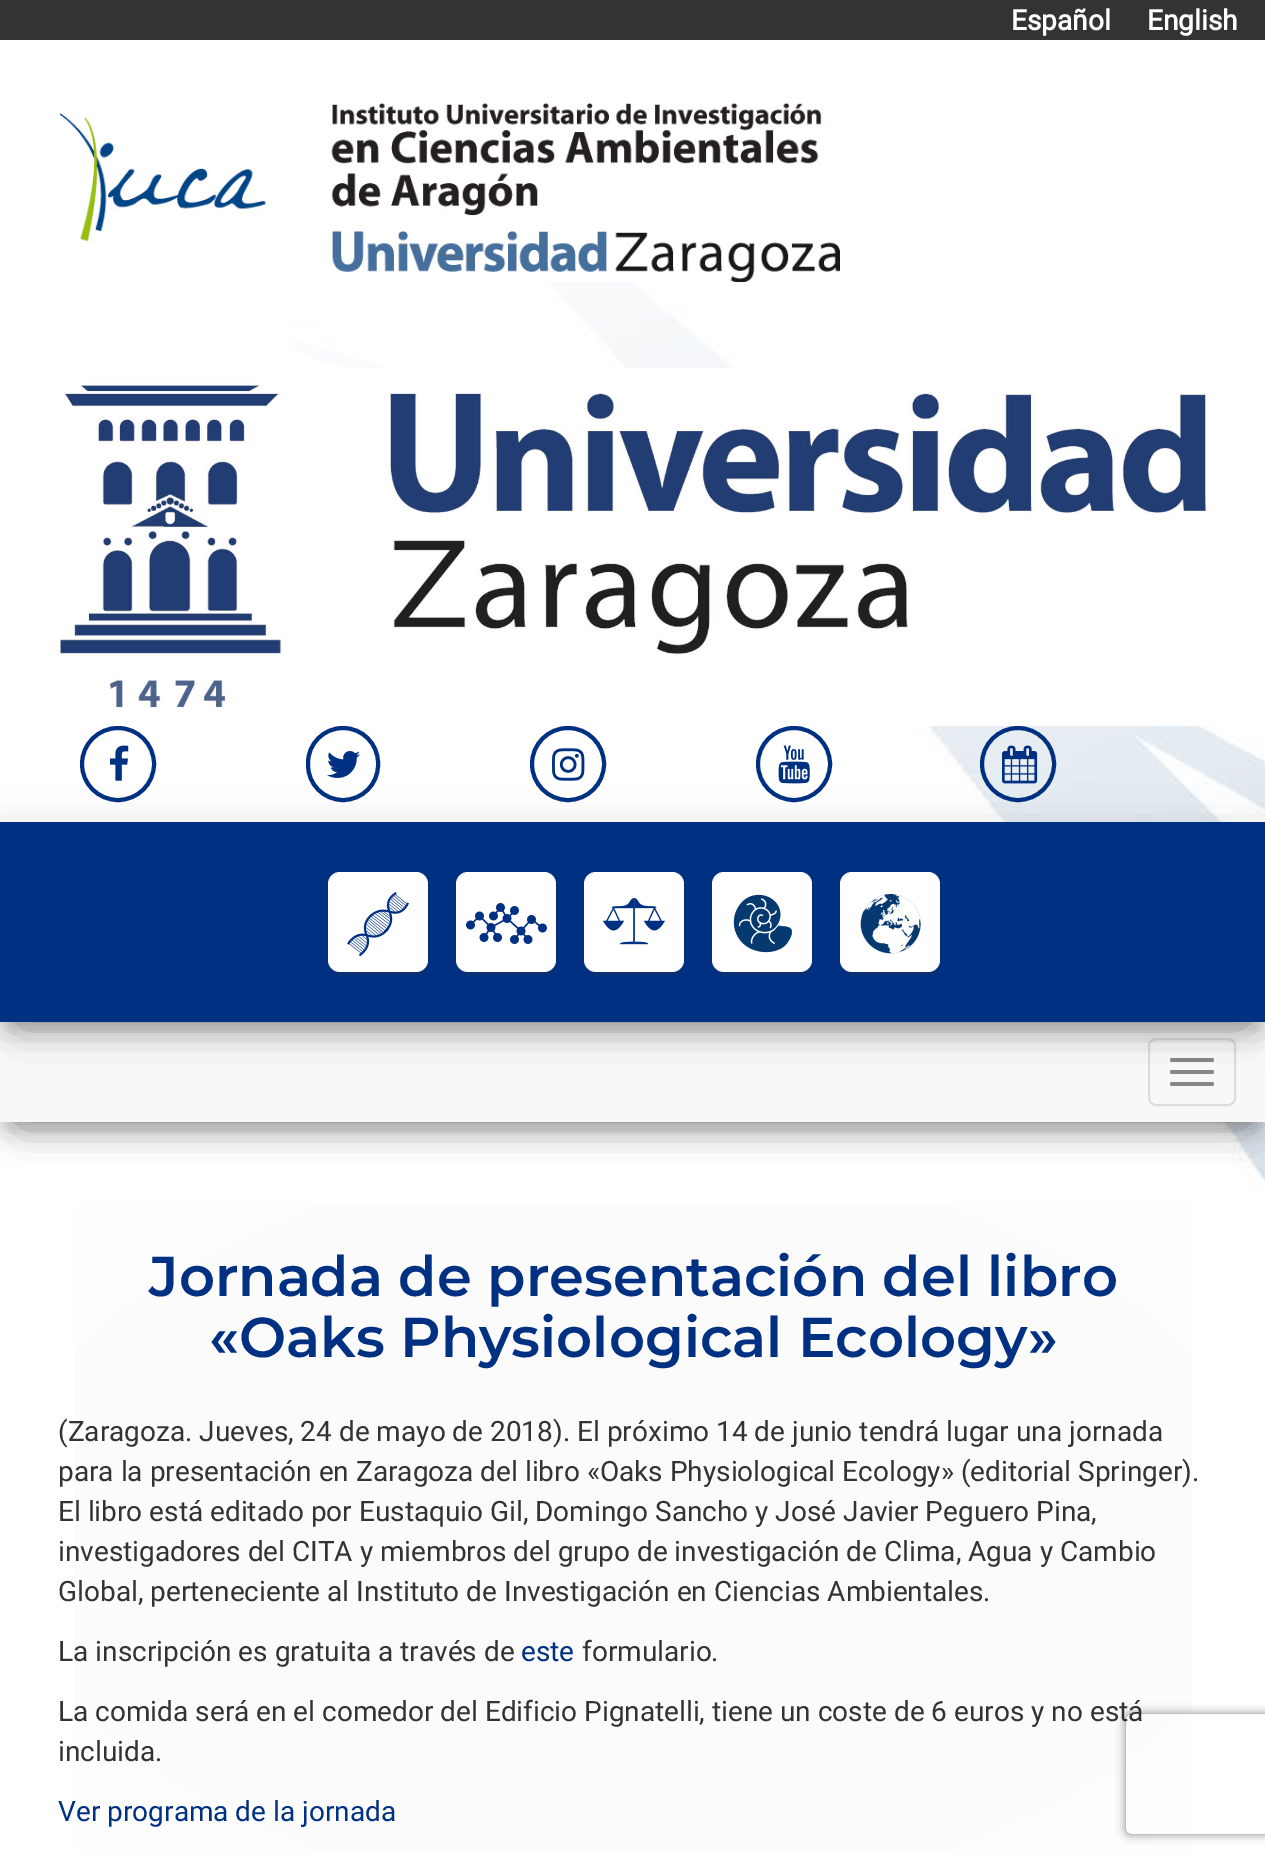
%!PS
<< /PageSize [1265 1861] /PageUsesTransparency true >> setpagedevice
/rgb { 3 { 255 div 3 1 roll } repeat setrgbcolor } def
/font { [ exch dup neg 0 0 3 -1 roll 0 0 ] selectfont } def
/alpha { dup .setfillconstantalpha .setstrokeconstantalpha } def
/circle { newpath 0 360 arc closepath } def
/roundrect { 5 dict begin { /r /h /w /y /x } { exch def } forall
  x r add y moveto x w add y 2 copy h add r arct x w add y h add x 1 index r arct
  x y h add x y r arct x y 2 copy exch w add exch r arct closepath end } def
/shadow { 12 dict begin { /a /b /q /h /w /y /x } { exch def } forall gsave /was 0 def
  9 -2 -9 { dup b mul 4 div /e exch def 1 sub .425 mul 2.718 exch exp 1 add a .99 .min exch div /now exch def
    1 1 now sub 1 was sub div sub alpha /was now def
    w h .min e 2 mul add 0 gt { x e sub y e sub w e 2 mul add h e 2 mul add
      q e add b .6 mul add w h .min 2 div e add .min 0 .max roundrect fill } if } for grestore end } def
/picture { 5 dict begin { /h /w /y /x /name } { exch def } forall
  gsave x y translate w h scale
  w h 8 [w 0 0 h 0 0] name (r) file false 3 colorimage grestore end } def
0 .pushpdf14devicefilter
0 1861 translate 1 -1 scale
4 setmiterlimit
255 255 255 rgb
0 0 1265 1861 rectfill
(img/1.rgb) 289 205 976 987 picture
51 51 51 rgb
0 0 1265 40 rectfill
(img/2.rgb) 60 102 780 180 picture
(img/3.rgb) 60 368 1146 358 picture
0 48 130 rgb
4 setlinewidth
118 764 36 circle stroke
(img/4.rgb) 110 745 19 36 picture
308 728 70 72 35 roundrect stroke
(img/5.rgb) 327 751 33 27 picture
568 764 36 circle stroke
(img/6.rgb) 552 748 33 33 picture
794 764 36 circle stroke
(img/7.rgb) 778 745 32 39 picture
1018 764 36 circle stroke
(img/8.rgb) 1002 745 36 39 picture
0 0 0 rgb
10 1048 1246 80 0 10 0.2 shadow
0 1028 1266 100 0 20 0.12 shadow
24 1066 1218 52 0 20 0.42 shadow
248 248 248 rgb
0 1022 1265 100 rectfill
221 221 221 rgb
2 setlinewidth
1149 1039 86 66 7 roundrect stroke
136 136 136 rgb
1170 1058 44 4 2 roundrect fill
0 0 0 rgb
10 848 1246 180 0 10 0.2 shadow
136 136 136 rgb
1170 1070 44 4 2 roundrect fill
1170 1082 44 4 2 roundrect fill
0 0 0 rgb
0 828 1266 200 0 20 0.12 shadow
24 866 1218 152 0 20 0.42 shadow
0 48 130 rgb
0 822 1265 200 rectfill
51 51 51 rgb
328 876 100 100 12 2 0.14 shadow
332 882 92 92 8 1 0.2 shadow
255 255 255 rgb
328 872 100 100 12 roundrect fill
(img/9.rgb) 347 892 62 65 picture
51 51 51 rgb
456 876 100 100 12 2 0.14 shadow
460 882 92 92 8 1 0.2 shadow
255 255 255 rgb
456 872 100 100 12 roundrect fill
(img/10.rgb) 466 903 81 41 picture
51 51 51 rgb
584 876 100 100 12 2 0.14 shadow
588 882 92 92 8 1 0.2 shadow
255 255 255 rgb
584 872 100 100 12 roundrect fill
(img/11.rgb) 603 898 62 47 picture
51 51 51 rgb
712 876 100 100 12 2 0.14 shadow
716 882 92 92 8 1 0.2 shadow
255 255 255 rgb
712 872 100 100 12 roundrect fill
(img/12.rgb) 733 894 59 59 picture
51 51 51 rgb
840 876 100 100 12 2 0.14 shadow
844 882 92 92 8 1 0.2 shadow
255 255 255 rgb
840 872 100 100 12 roundrect fill
(img/13.rgb) 860 893 61 61 picture
gsave 74 1202 moveto 1192 1202 lineto 1192 1854 lineto 74 1854 lineto closepath clip newpath 633 1528 translate 853 495 scale
<< /ShadingType 3 /ColorSpace /DeviceRGB /Coords [0 0 0 0 0 1] /Extend [true true] /Function << /FunctionType 3 /Domain [0 1] /Functions [<< /FunctionType 2 /Domain [0 1] /C0 [0.984 0.984 0.984] /C1 [0.984 0.984 0.984] /N 1 >> << /FunctionType 2 /Domain [0 1] /C0 [0.984 0.984 0.984] /C1 [1 1 1] /N 1 >>] /Bounds [0.45] /Encode [0 1 0 1] >> >> shfill grestore
gsave
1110 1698 moveto 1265 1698 lineto 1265 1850 lineto 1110 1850 lineto closepath 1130 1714 moveto 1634 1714 lineto 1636 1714 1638 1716 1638 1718 curveto 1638 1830 lineto 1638 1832 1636 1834 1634 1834 curveto 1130 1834 lineto 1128 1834 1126 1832 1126 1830 curveto 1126 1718 lineto 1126 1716 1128 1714 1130 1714 curveto closepath eoclip newpath
128 128 128 rgb
1126 1714 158 120 4 5 1 shadow
grestore
/Roboto-Bold 28 font
1011 30 moveto (Español) show
1147 30 moveto (English) show
/Montserrat-SemiBold 56 font
0 48 130 rgb
149 1296 moveto (Jornada de presentación del libro) show
209 1357 moveto («Oaks Physiological Ecology») show
/Roboto-Regular 28 font
51 51 51 rgb
[
  [(\(Zaragoza. Jueves, 24 de mayo de 2018\). El próximo 14 de junio tendrá lugar una jornada) 58 1441]
  [(para la presentación en Zaragoza del libro «Oaks Physiological Ecology» \(editorial Springer\).) 58 1481]
  [(El libro está editado por Eustaquio Gil, Domingo Sancho y José Javier Peguero Pina,) 58 1521]
  [(investigadores del CITA y miembros del grupo de investigación de Clima, Agua y Cambio) 58 1561]
  [(Global, perteneciente al Instituto de Investigación en Ciencias Ambientales.) 58 1601]
  [(La inscripción es gratuita a través de) 58 1661]
] { aload pop moveto show } forall
0 48 130 rgb
521 1661 moveto (este) show
51 51 51 rgb
[
  [(formulario.) 582 1661]
  [(La comida será en el comedor del Edificio Pignatelli, tiene un coste de 6 euros y no está) 58 1721]
  [(incluida.) 58 1761]
] { aload pop moveto show } forall
0 48 130 rgb
58 1821 moveto (Ver programa de la jornada) show
.poppdf14devicefilter showpage
